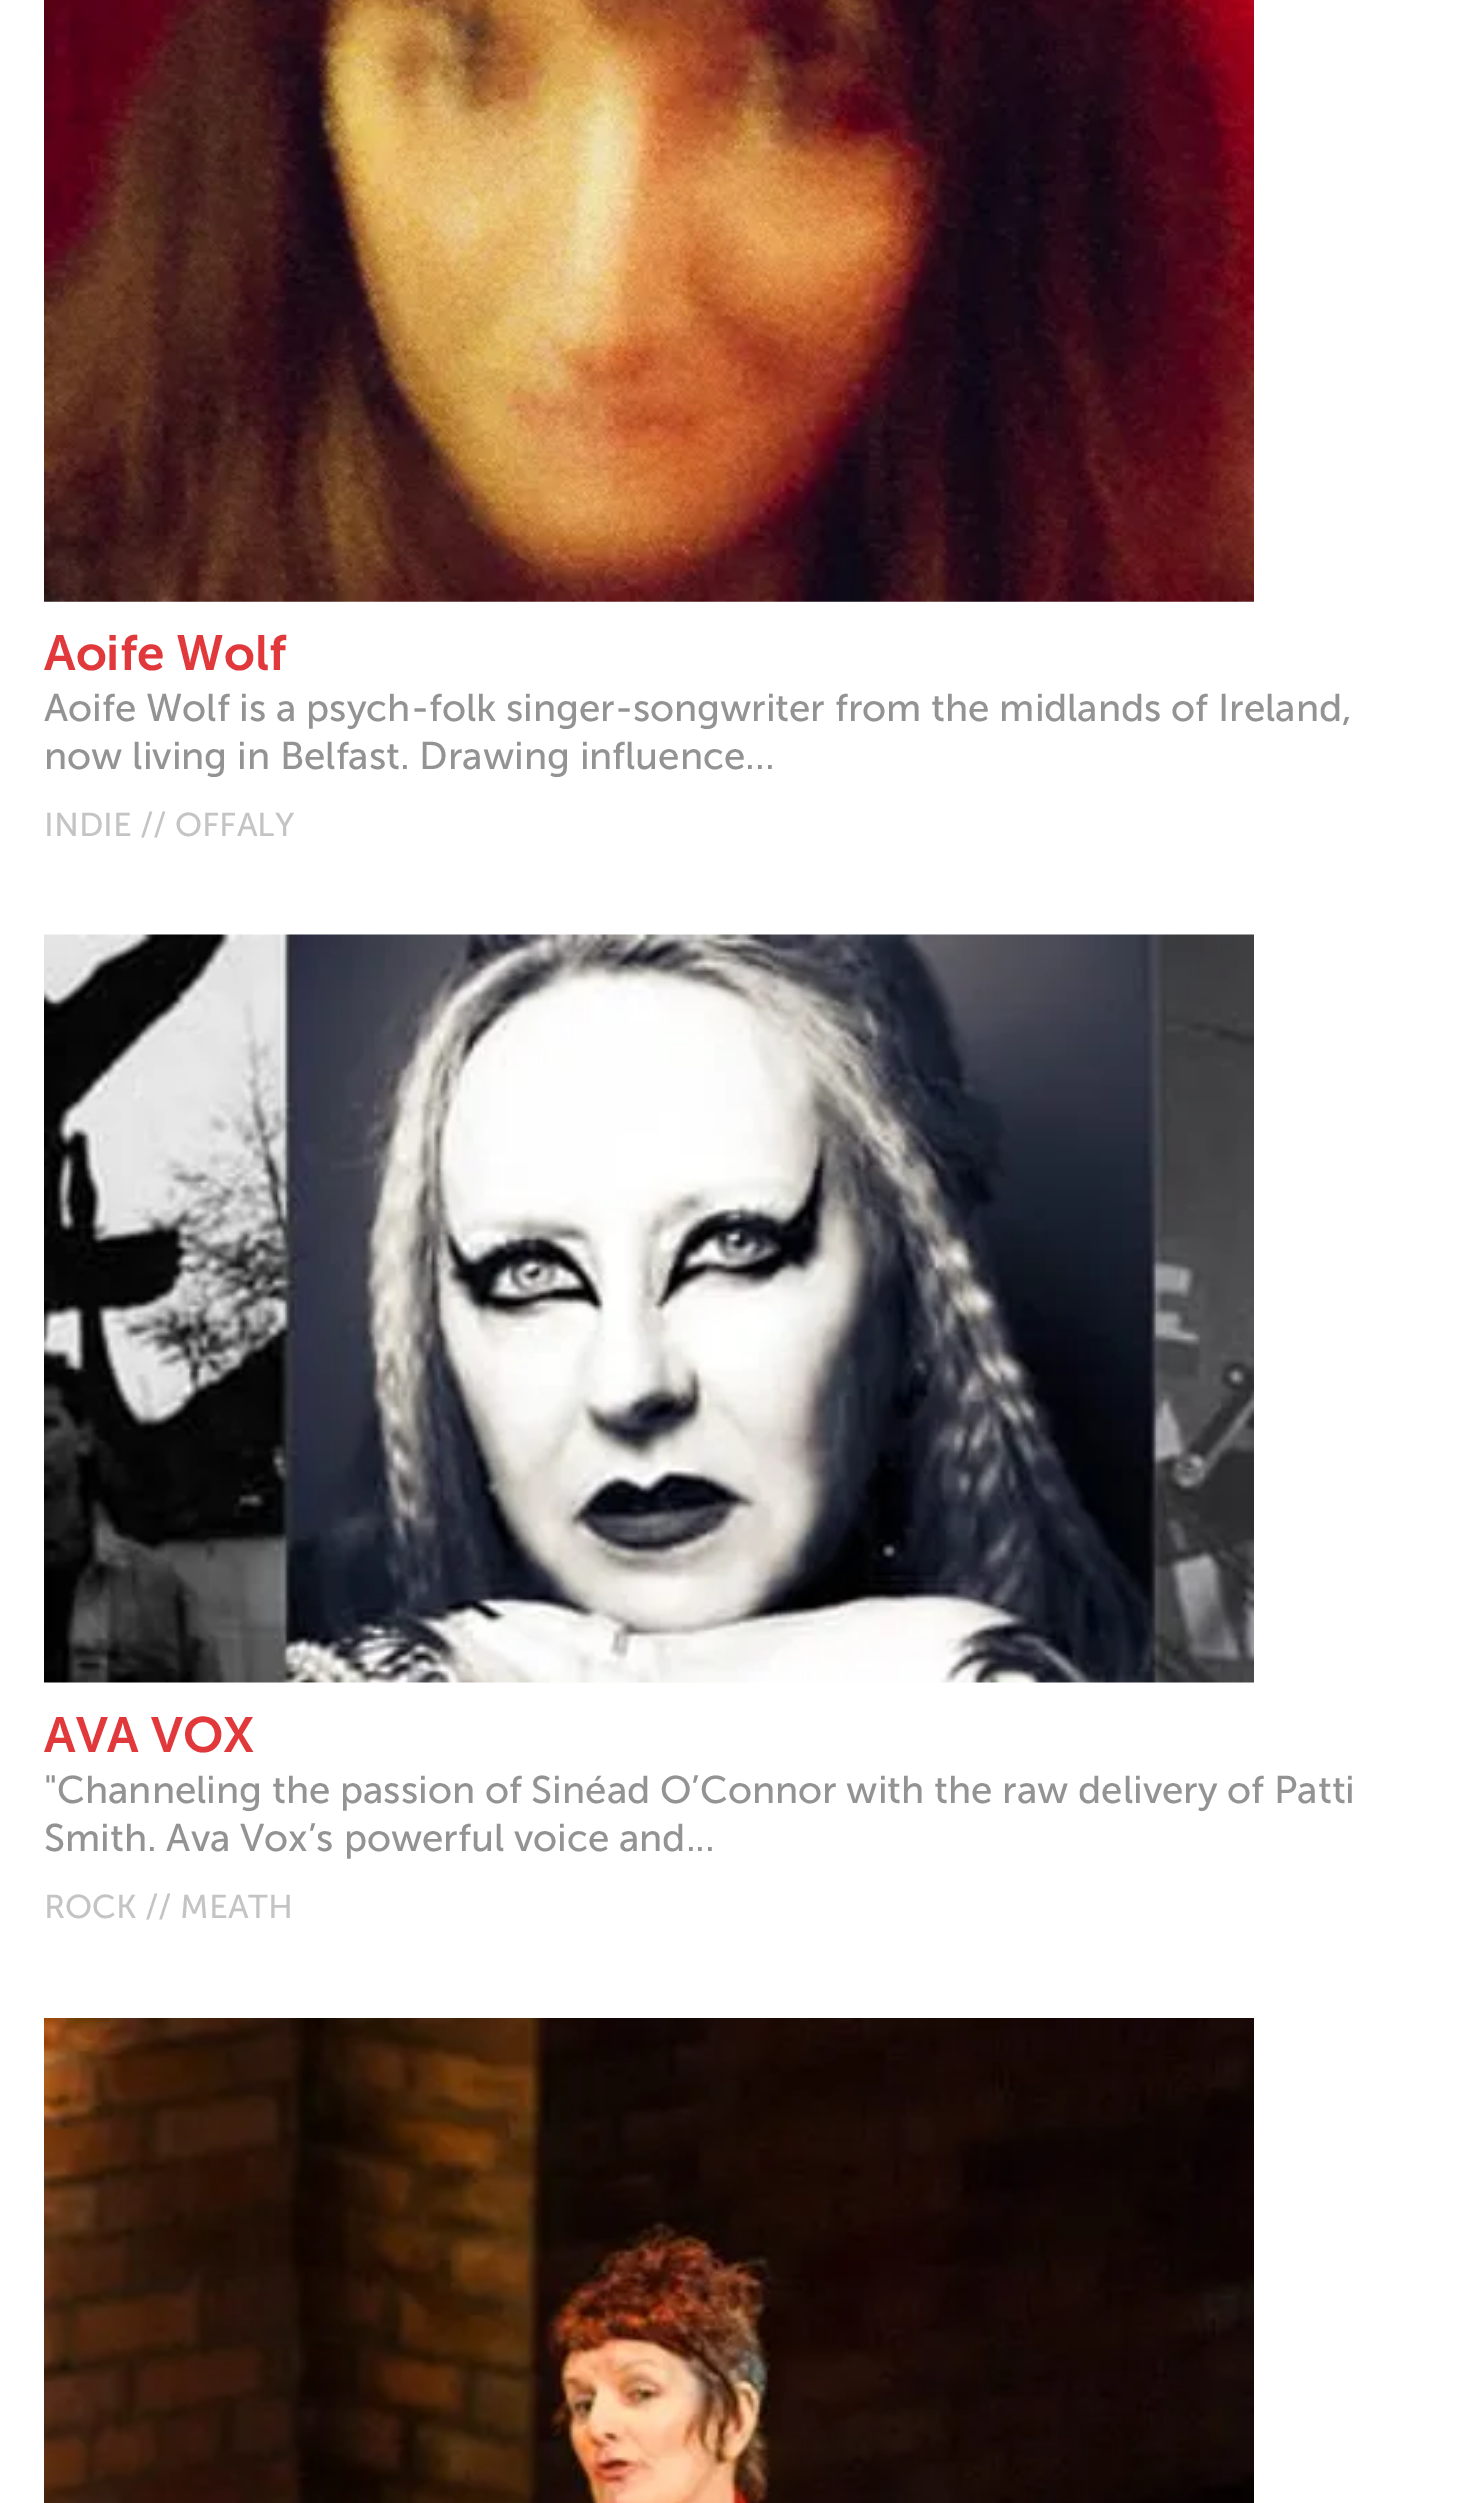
%!PS
<< /PageSize [1469 2503] >> setpagedevice
/rgb { 3 { 255 div 3 1 roll } repeat setrgbcolor } def
/font { [ exch dup neg 0 0 3 -1 roll 0 0 ] selectfont } def
/picture { 5 dict begin { /h /w /y /x /name } { exch def } forall
  gsave x y translate w h scale
  w h 8 [w 0 0 h 0 0] name (r) file false 3 colorimage grestore end } def
0 2503 translate 1 -1 scale
4 setmiterlimit
255 255 255 rgb
0 0 1469 2503 rectfill
(img/1.rgb) 44 0 1210 602 picture
(img/2.rgb) 44 934 1210 749 picture
(img/3.rgb) 44 2018 1210 485 picture
/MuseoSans-SemiBold 49.5 font
225 56 59 rgb
44 670 moveto (Aoife Wolf) show
/MuseoSans-Regular 38.5 font
147 147 147 rgb
44 721 moveto (Aoife Wolf is a psych-folk singer-songwriter from the midlands of Ireland,) show
44 769 moveto (now living in Belfast. Drawing influence...) show
/MuseoSans-Regular 33 font
196 196 196 rgb
44 836 moveto (INDIE // OFFALY) show
/MuseoSans-SemiBold 49.5 font
225 56 59 rgb
44 1752 moveto (AVA VOX) show
/MuseoSans-Regular 38.5 font
147 147 147 rgb
44 1803 moveto ("Channeling the passion of Sinéad O’Connor with the raw delivery of Patti) show
44 1851 moveto (Smith. Ava Vox’s powerful voice and...) show
/MuseoSans-Regular 33 font
196 196 196 rgb
44 1918 moveto (ROCK // MEATH) show
showpage
